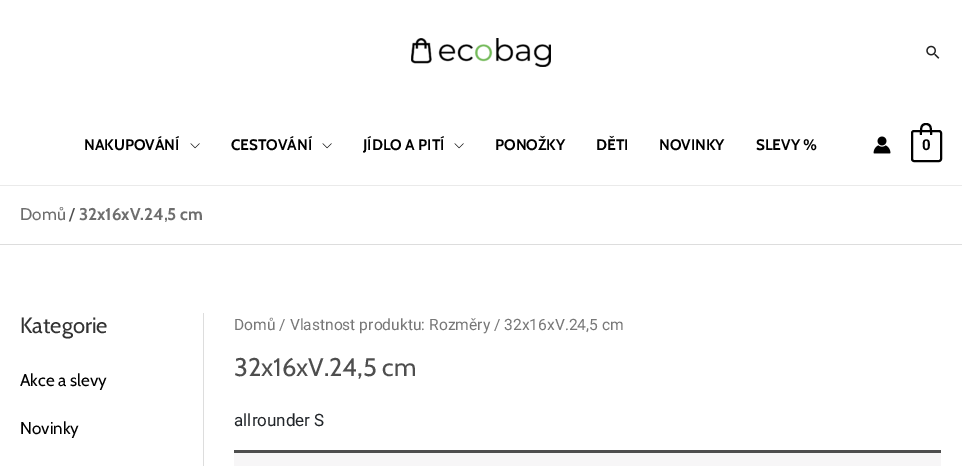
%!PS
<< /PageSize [962 466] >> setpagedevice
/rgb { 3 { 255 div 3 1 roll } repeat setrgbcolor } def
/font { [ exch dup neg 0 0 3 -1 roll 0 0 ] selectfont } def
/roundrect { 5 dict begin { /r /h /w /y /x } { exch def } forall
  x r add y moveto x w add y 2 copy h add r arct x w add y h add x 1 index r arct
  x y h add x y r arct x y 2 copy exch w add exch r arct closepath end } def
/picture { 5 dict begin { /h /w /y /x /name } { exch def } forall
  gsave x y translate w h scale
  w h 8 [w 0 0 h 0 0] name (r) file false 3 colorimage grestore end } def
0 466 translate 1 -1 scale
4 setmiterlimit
255 255 255 rgb
0 0 962 466 rectfill
(img/1.rgb) 411 38 140 29 picture
(img/2.rgb) 926 45 14 14 picture
234 234 234 rgb
0 185 962 1 rectfill
(img/3.rgb) 190 143 10 6 picture
(img/3.rgb) 322 143 10 6 picture
(img/3.rgb) 454 143 10 6 picture
(img/4.rgb) 873 136 18 18 picture
0 0 0 rgb
2 setlinewidth
912 131 29 30 2 roundrect stroke
926 123 moveto 933 123 932 130.5 932 135 curveto 920 135 lineto 920 130.5 919 123 926 123 curveto closepath 926 125 moveto 931 125 930 131.5 930 135 curveto 922 135 lineto 922 131.5 921 125 926 125 curveto closepath eofill
[
  [0 244 962 1 221 221 221]
  [203 313 1 153 221 221 221]
  [234 453 707 13 247 246 247]
  [234 450 707 3 78 78 78]
] { aload pop rgb rectfill } forall
/Cabin-Bold 15.25 font
0 0 0 rgb
[
  [(NAKUPOVÁNÍ) 84 150]
  [(CESTOVÁNÍ) 231 150]
  [(JÍDLO A PITÍ) 363 150]
  [(PONOŽKY) 495 150]
  [(DĚTI) 596 150]
  [(NOVINKY) 659 150]
  [(SLEVY %) 756 150]
] { aload pop moveto show } forall
/Roboto-Bold 15 font
922 150 moveto (0) show
/Cabin-Regular 17 font
110 110 110 rgb
20 220 moveto (Domů) show
78 78 78 rgb
69 220 moveto (/) show
/Cabin-Bold 17 font
110 110 110 rgb
79 220 moveto (32x16xV.24,5 cm) show
/Cabin-Regular 22 font
51 51 51 rgb
20 333 moveto (Kategorie) show
/Cabin-Regular 17 font
0 0 0 rgb
20 386 moveto (Akce a slevy) show
20 434 moveto (Novinky) show
/Roboto-Regular 15.6 font
119 119 119 rgb
234 330 moveto (Domů / Vlastnost produktu: Rozměry / 32x16xV.24,5 cm) show
/Cabin-Regular 25.5 font
78 78 78 rgb
234 376 moveto (32x16xV.24,5 cm) show
/Roboto-Regular 17 font
33 37 41 rgb
234 426 moveto (allrounder S) show
showpage
